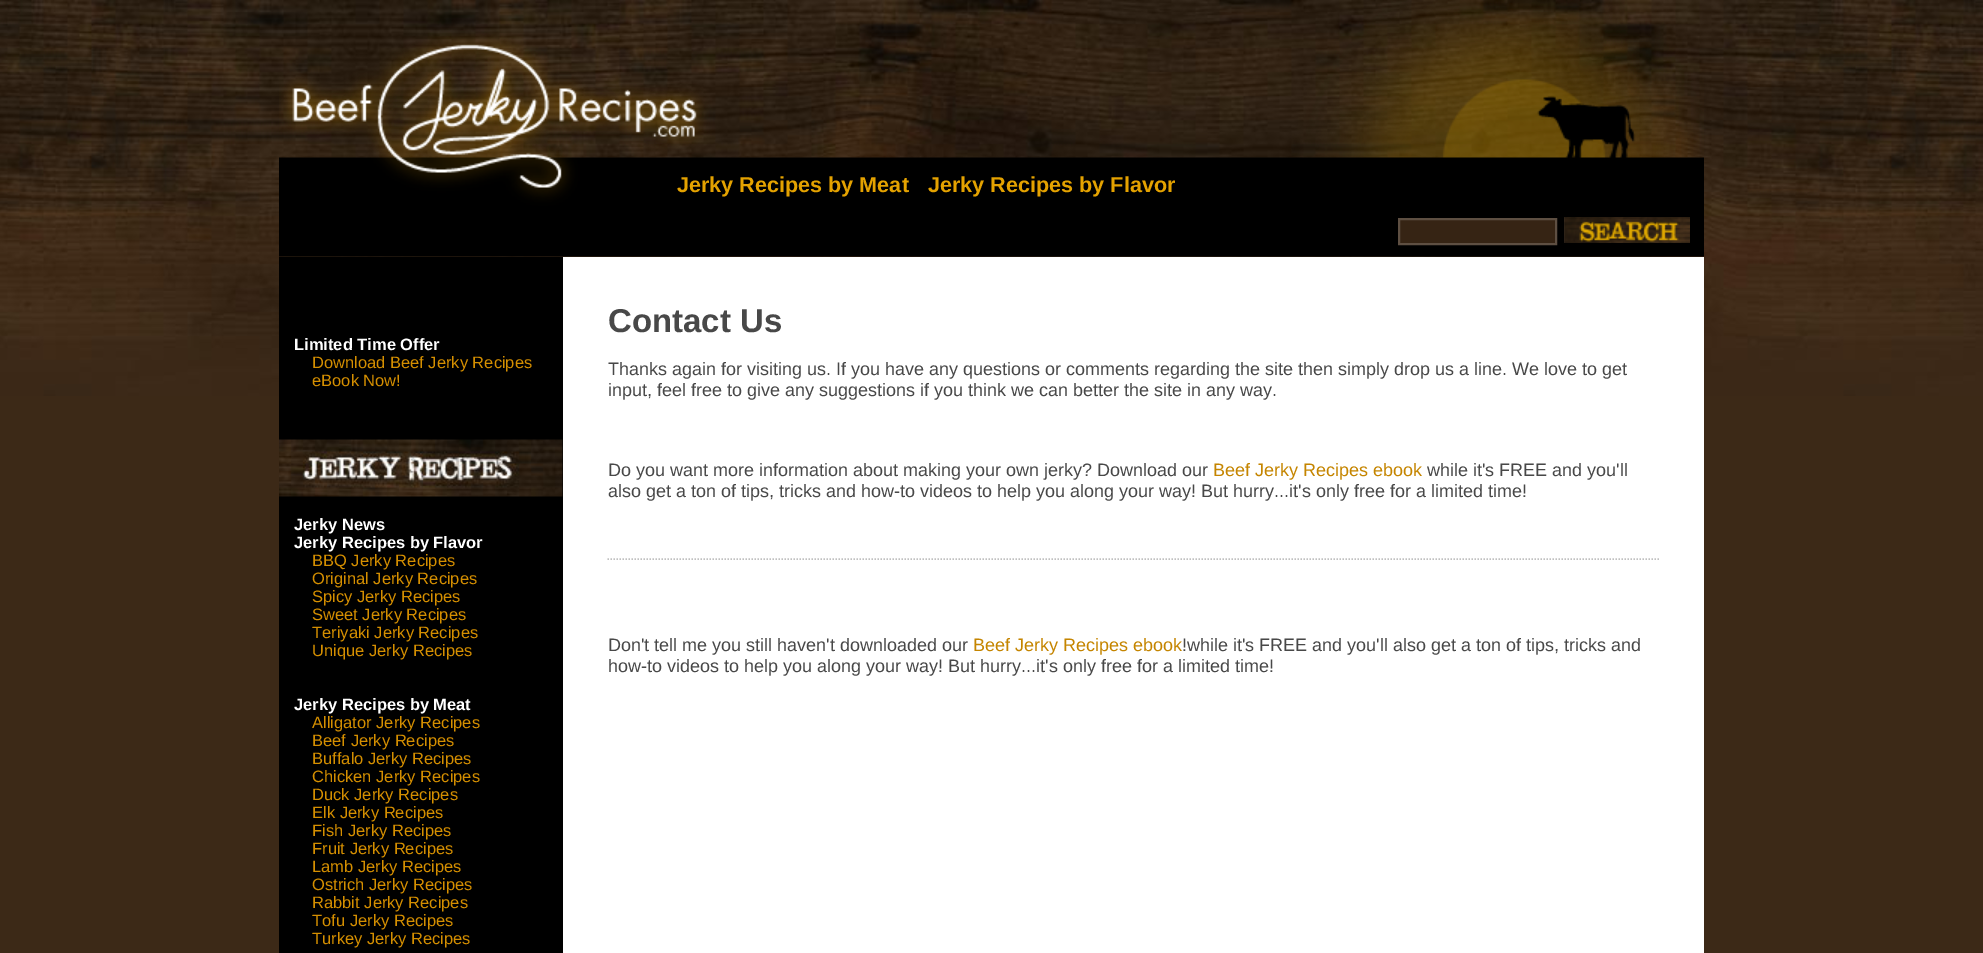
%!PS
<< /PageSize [1983 953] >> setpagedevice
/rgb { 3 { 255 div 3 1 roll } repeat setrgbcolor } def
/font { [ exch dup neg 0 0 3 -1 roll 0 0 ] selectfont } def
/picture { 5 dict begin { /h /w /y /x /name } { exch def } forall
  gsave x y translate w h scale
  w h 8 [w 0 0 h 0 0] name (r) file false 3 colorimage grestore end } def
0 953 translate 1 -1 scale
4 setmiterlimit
60 41 23 rgb
0 0 1983 953 rectfill
(img/1.rgb) 0 0 1983 396 picture
(img/2.rgb) 279 0 1425 257 picture
54 36 20 rgb
1399 219 moveto 1556 219 lineto 1556 244 lineto 1399 244 lineto closepath gsave fill grestore
94 79 66 rgb
2 setlinewidth
stroke
(img/3.rgb) 1564 217 126 26 picture
255 255 255 rgb
563 257 1141 696 rectfill
0 0 0 rgb
279 257 284 696 rectfill
(img/4.rgb) 279 439 284 58 picture
192 192 192 rgb
1.5 setlinewidth
[1.5 1.5] 0 setdash
607.5 559 moveto 1659 559 lineto stroke
/LiberationSans-Bold 21.6 font
228 162 0 rgb
677 192 moveto (Jerky Recipes by Meat) show
928 192 moveto (Jerky Recipes by Flavor) show
/LiberationSans-Bold 16.5 font
255 255 255 rgb
294 350 moveto (Limited Time Offer) show
/LiberationSans-Regular 16.5 font
213 143 0 rgb
312 368 moveto (Download Beef Jerky Recipes) show
312 386 moveto (eBook Now!) show
/LiberationSans-Bold 16.5 font
255 255 255 rgb
294 530 moveto (Jerky News) show
294 548 moveto (Jerky Recipes by Flavor) show
/LiberationSans-Regular 16.5 font
213 143 0 rgb
[
  [(BBQ Jerky Recipes) 312 566]
  [(Original Jerky Recipes) 312 584]
  [(Spicy Jerky Recipes) 312 602]
  [(Sweet Jerky Recipes) 312 620]
  [(Teriyaki Jerky Recipes) 312 638]
  [(Unique Jerky Recipes) 312 656]
] { aload pop moveto show } forall
/LiberationSans-Bold 16.5 font
255 255 255 rgb
294 710 moveto (Jerky Recipes by Meat) show
/LiberationSans-Regular 16.5 font
213 143 0 rgb
[
  [(Alligator Jerky Recipes) 312 728]
  [(Beef Jerky Recipes) 312 746]
  [(Buffalo Jerky Recipes) 312 764]
  [(Chicken Jerky Recipes) 312 782]
  [(Duck Jerky Recipes) 312 800]
  [(Elk Jerky Recipes) 312 818]
  [(Fish Jerky Recipes) 312 836]
  [(Fruit Jerky Recipes) 312 854]
  [(Lamb Jerky Recipes) 312 872]
  [(Ostrich Jerky Recipes) 312 890]
  [(Rabbit Jerky Recipes) 312 908]
  [(Tofu Jerky Recipes) 312 926]
  [(Turkey Jerky Recipes) 312 944]
] { aload pop moveto show } forall
/LiberationSans-Bold 33 font
72 72 72 rgb
608 332 moveto (Contact Us) show
/LiberationSans-Regular 18 font
[
  [(Thanks again for visiting us. If you have any questions or comments regarding the site then simply drop us a line. We love to get) 608 375]
  [(input, feel free to give any suggestions if you think we can better the site in any way.) 608 396]
  [(Do you want more information about making your own jerky? Download our) 608 476]
] { aload pop moveto show } forall
197 133 0 rgb
1213 476 moveto (Beef Jerky Recipes ebook) show
72 72 72 rgb
[
  [(while it's FREE and you'll) 1427 476]
  [(also get a ton of tips, tricks and how-to videos to help you along your way! But hurry...it's only free for a limited time!) 608 497]
  [(Don't tell me you still haven't downloaded our) 608 651]
] { aload pop moveto show } forall
197 133 0 rgb
973 651 moveto (Beef Jerky Recipes ebook) show
72 72 72 rgb
1182 651 moveto (!while it's FREE and you'll also get a ton of tips, tricks and) show
608 672 moveto (how-to videos to help you along your way! But hurry...it's only free for a limited time!) show
showpage
